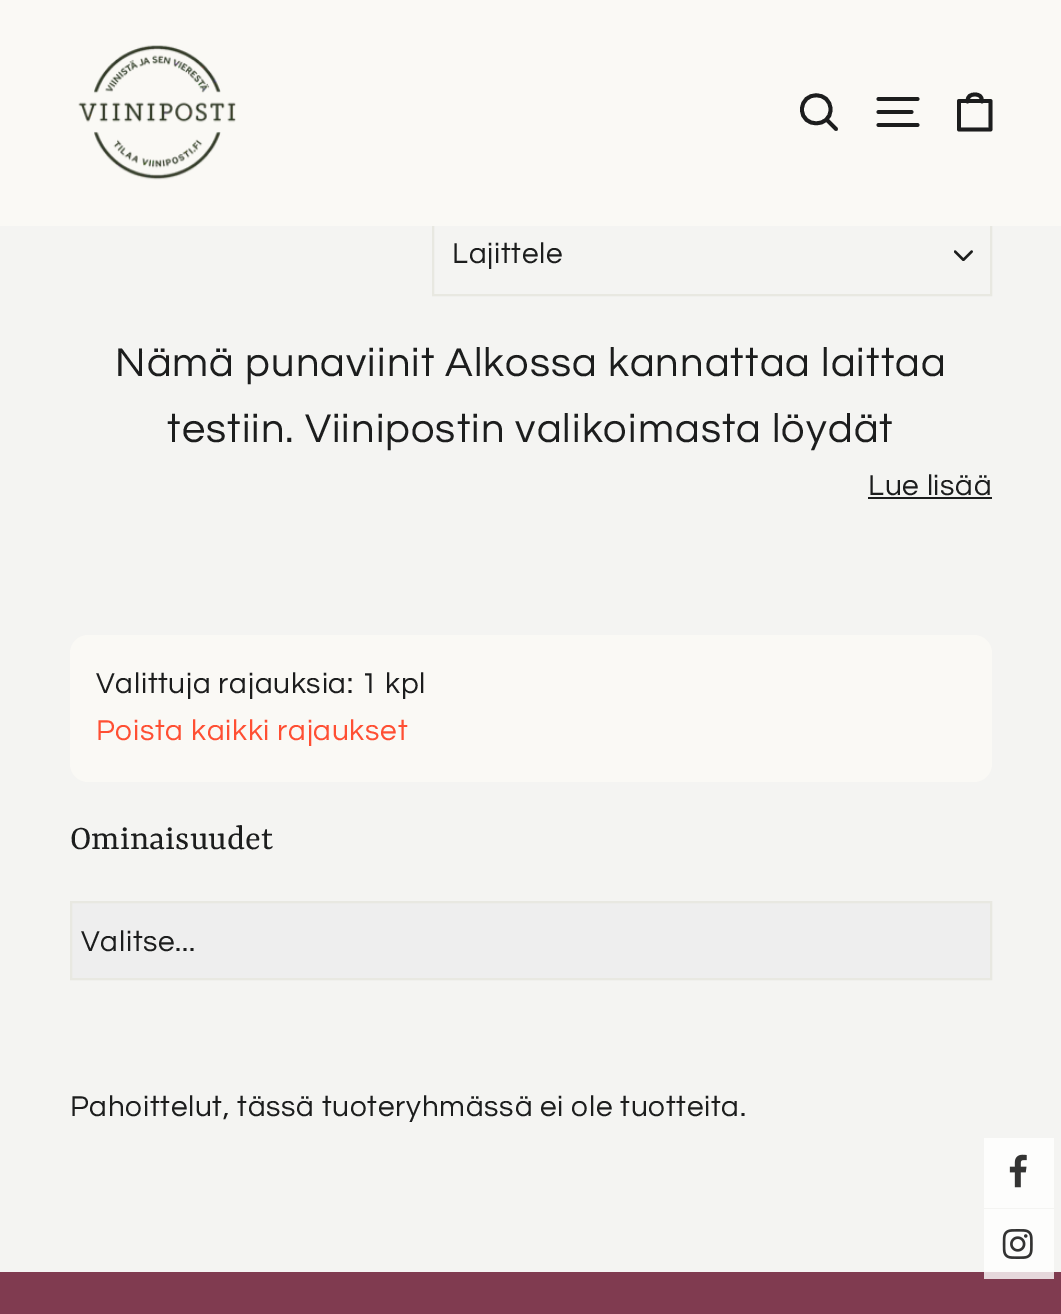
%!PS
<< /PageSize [1061 1314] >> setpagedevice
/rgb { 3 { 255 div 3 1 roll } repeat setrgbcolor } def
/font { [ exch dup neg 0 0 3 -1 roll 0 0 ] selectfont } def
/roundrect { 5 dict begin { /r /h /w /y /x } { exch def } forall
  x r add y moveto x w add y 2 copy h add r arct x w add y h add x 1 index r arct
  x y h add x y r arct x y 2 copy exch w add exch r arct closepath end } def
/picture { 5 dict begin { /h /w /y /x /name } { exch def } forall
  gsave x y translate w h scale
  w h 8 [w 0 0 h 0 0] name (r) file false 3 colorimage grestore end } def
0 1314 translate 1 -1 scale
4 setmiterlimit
244 244 242 rgb
0 0 1061 1314 rectfill
253 253 252 rgb
984 1209 70 63 rectfill
(img/2.rgb) 954 250 19 11 picture
232 232 225 rgb
2 setlinewidth
433 216 558 79 rectstroke
250 249 245 rgb
0 0 1061 226 rectfill
(img/1.rgb) 78 45 158 135 picture
28 29 29 rgb
3.8 setlinewidth
1 setlinecap
1 setlinejoin
830.5 109.5 moveto 830.5 128 802 128 802 109.5 curveto 802 90.5 830.5 90.5 830.5 109.5 curveto closepath 836 129 moveto 826.5 119.5 lineto stroke
878.5 99 moveto 917.5 99 lineto 878.5 112 moveto 911.5 112 lineto 878.5 125 moveto 917.5 125 lineto stroke
959 101 moveto 990.5 101 lineto 990.5 129.5 lineto 959 129.5 lineto closepath 967.5 101.5 moveto 967.5 96 970.5 94.5 975 94.5 curveto 979 94.5 982 96 982 101.5 curveto stroke
868 497 124 2 rectfill
250 249 245 rgb
70 635 922 147 18 roundrect fill
238 238 238 rgb
71 902 moveto 991 902 lineto 991 979 lineto 71 979 lineto closepath gsave fill grestore
232 232 225 rgb
2 setlinewidth
0 setlinecap
0 setlinejoin
stroke
[
  [0 1272 1061 42 128 59 80]
  [984 1272 70 7 230 216 220]
  [984 1138 70 70 253 253 252]
] { aload pop rgb rectfill } forall
(img/3.rgb) 1009 1154 18 34 picture
(img/4.rgb) 1002 1229 31 30 picture
/Questrial-Regular 29.75 font
28 29 29 rgb
452 263 moveto 0.75 0 (Lajittele) ashow
/Questrial-Regular 41.6 font
115 376 moveto 1.05 0 (Nämä punaviinit Alkossa kannattaa laittaa) ashow
167 442 moveto 1.05 0 (testiin. Viinipostin valikoimasta löydät) ashow
/Questrial-Regular 29.75 font
868 495 moveto 0.75 0 (Lue lisää) ashow
96 693 moveto 0.75 0 (Valittuja rajauksia: 1 kpl) ashow
255 79 51 rgb
96 740 moveto 0.75 0 (Poista kaikki rajaukset) ashow
/Yrsa-Regular 36.75 font
28 29 29 rgb
70 849 moveto (Ominaisuudet) show
/Questrial-Regular 29.75 font
81 951 moveto 0.75 0 (Valitse...) ashow
70 1116 moveto 0.75 0 (Pahoittelut, tässä tuoteryhmässä ei ole tuotteita.) ashow
showpage
